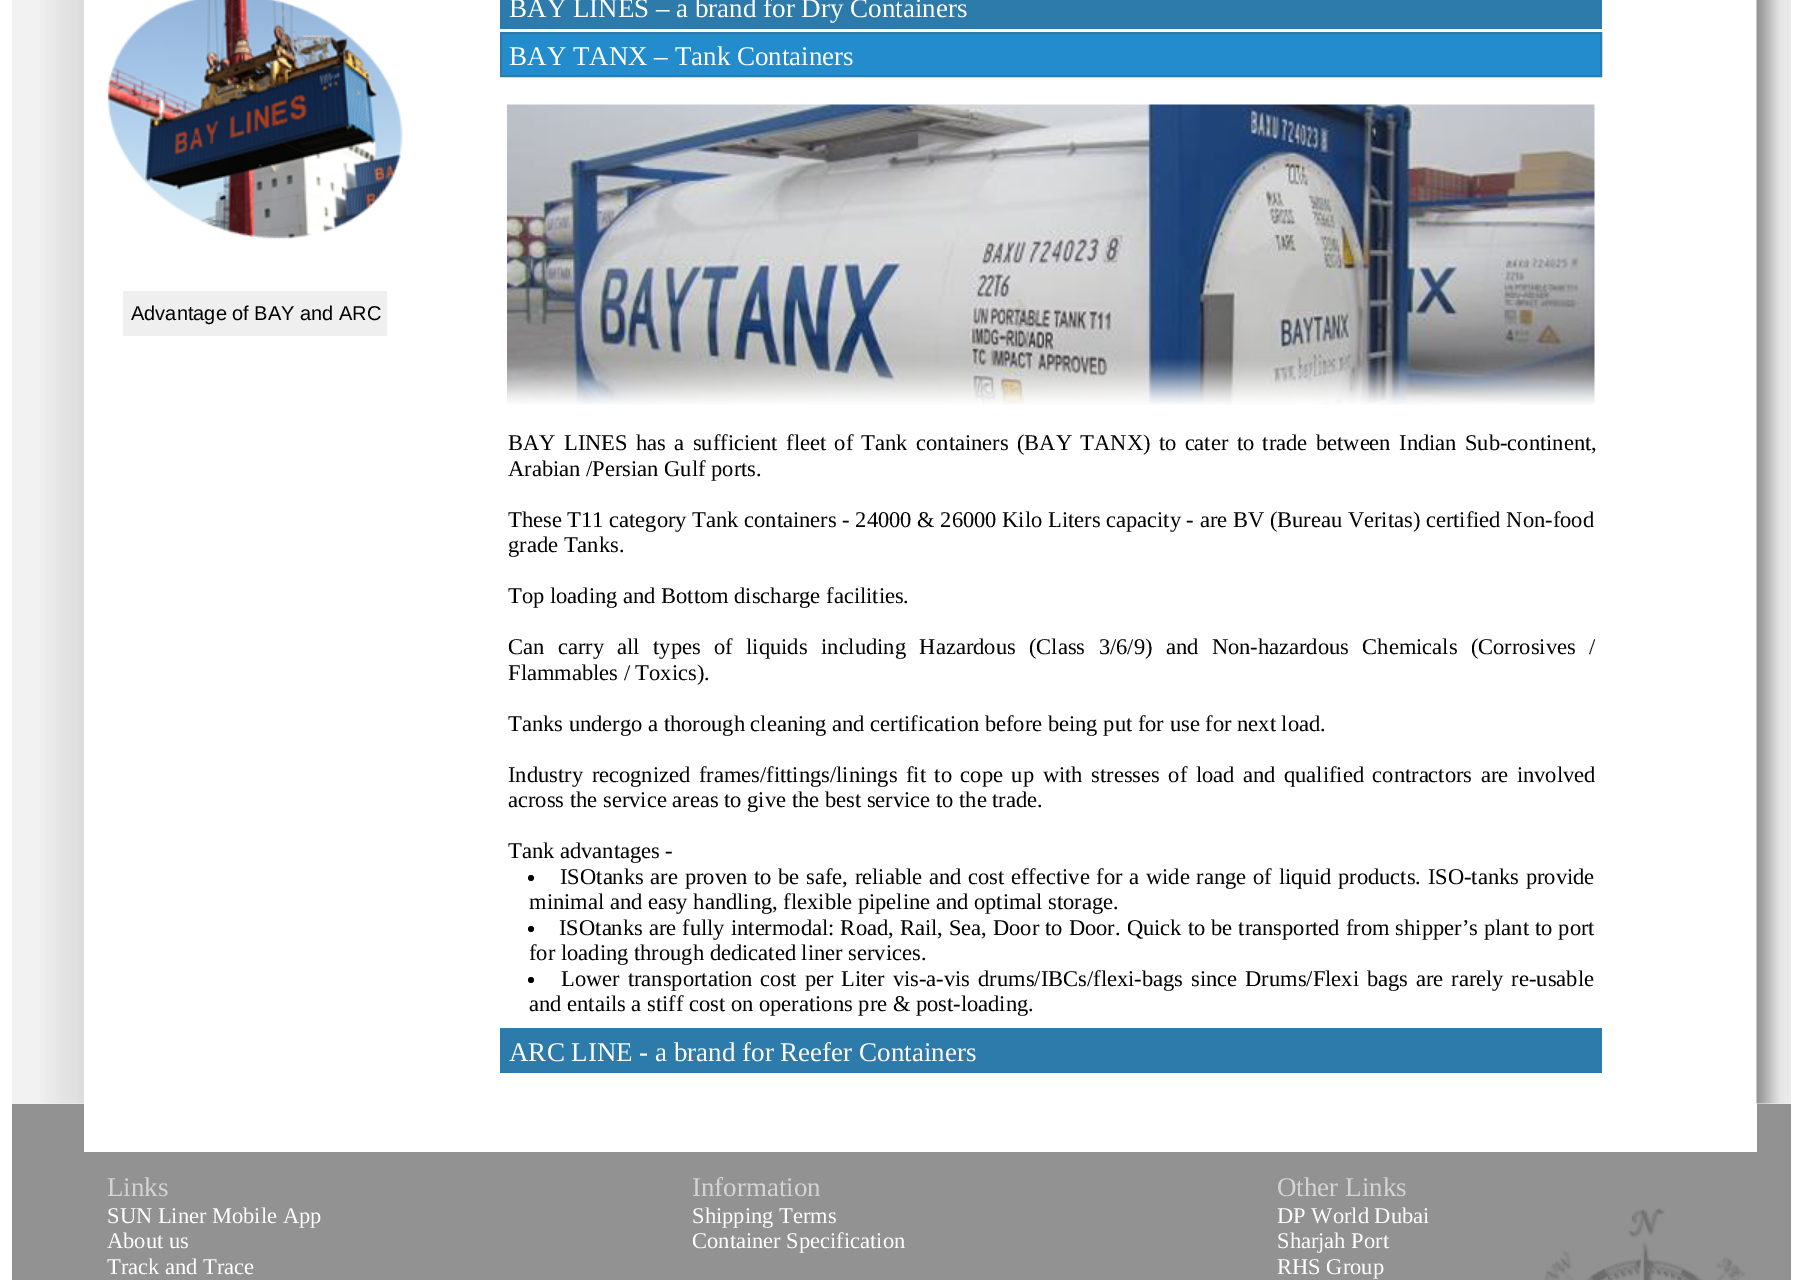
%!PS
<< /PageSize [1803 1280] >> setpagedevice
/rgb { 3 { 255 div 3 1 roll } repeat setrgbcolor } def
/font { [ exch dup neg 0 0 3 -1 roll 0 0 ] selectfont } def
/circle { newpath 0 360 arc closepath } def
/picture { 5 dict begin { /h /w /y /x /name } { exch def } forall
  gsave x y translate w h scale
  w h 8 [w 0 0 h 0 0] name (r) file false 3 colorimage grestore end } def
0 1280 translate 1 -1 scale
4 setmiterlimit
255 255 255 rgb
0 0 1803 1280 rectfill
242 242 242 rgb
12 0 1779 1104 rectfill
(img/1.rgb) 40 0 44 1104 picture
255 255 255 rgb
84 0 1673 1104 rectfill
(img/2.rgb) 106 0 297 240 picture
239 239 239 rgb
123 291 264 45 rectfill
45 123 171 rgb
500 0 1102 29 rectfill
35 140 205 rgb
501 33 moveto 1601 33 lineto 1601 76 lineto 501 76 lineto closepath gsave fill grestore
45 123 171 rgb
2 setlinewidth
stroke
(img/3.rgb) 507 104 1088 301 picture
0 0 0 rgb
531 878 3 circle fill
531 929 3 circle fill
531 980 3 circle fill
45 123 171 rgb
500 1028 1102 45 rectfill
(img/4.rgb) 1756 0 35 1104 picture
146 146 146 rgb
12 1104 1779 176 rectfill
255 255 255 rgb
84 1104 1673 48 rectfill
(img/5.rgb) 1544 1208 201 72 picture
/LiberationSans-Regular 20 font
0 0 0 rgb
131 320 moveto (Advantage of BAY and ARC) show
/LiberationSerif-Regular 27 font
255 255 255 rgb
509 17 moveto (BAY LINES – a brand for Dry Containers) show
509 65 moveto (BAY TANX – Tank Containers) show
/LiberationSerif-Regular 22.5 font
0 0 0 rgb
508 450 moveto 2.75 0 32 (BAY LINES has a sufficient fleet of Tank containers \(BAY TANX\) to cater to trade between Indian Sub-continent,) widthshow
[
  [(Arabian /Persian Gulf ports.) 508 476]
  [(These T11 category Tank containers - 24000 & 26000 Kilo Liters capacity - are BV \(Bureau Veritas\) certified Non-food) 508 527]
  [(grade Tanks.) 508 552]
  [(Top loading and Bottom discharge facilities.) 508 603]
] { aload pop moveto show } forall
508 654 moveto 7.75 0 32 (Can carry all types of liquids) widthshow
821 654 moveto 7.75 0 32 (including Hazardous \(Class 3/6/9\) and Non-hazardous Chemicals \(Corrosives /) widthshow
508 680 moveto (Flammables / Toxics\).) show
508 731 moveto (Tanks undergo a thorough cleaning and certification before being put for use for next load.) show
508 782 moveto 2.9 0 32 (Industry recognized frames/fittings/linings fit to cope up with stresses of load and qualified contractors are involved) widthshow
508 807 moveto (across the service areas to give the best service to the trade.) show
508 858 moveto (Tank advantages -) show
560 884 moveto 1.1 0 32 (ISOtanks are proven to be safe, reliable and cost effective for a wide range of liquid products. ISO-tanks provide) widthshow
529 909 moveto (minimal and easy handling, flexible pipeline and optimal storage.) show
559 935 moveto 0.4 0 32 (ISOtanks are fully intermodal: Road, Rail, Sea, Door to Door. Quick to be transported from shipper’s plant to port) widthshow
529 960 moveto (for loading through dedicated liner services.) show
561 986 moveto 2.25 0 32 (Lower transportation cost per Liter vis-a-vis drums/IBCs/flexi-bags since Drums/Flexi bags are rarely re-usable) widthshow
529 1011 moveto (and entails a stiff cost on operations pre & post-loading.) show
/LiberationSerif-Regular 27 font
255 255 255 rgb
509 1061 moveto (ARC LINE - a brand for Reefer Containers) show
212 212 212 rgb
107 1196 moveto (Links) show
/LiberationSerif-Regular 22.5 font
255 255 255 rgb
[
  [(SUN Liner Mobile App) 107 1223]
  [(About us) 107 1248]
  [(Track and Trace) 107 1274]
] { aload pop moveto show } forall
/LiberationSerif-Regular 27 font
212 212 212 rgb
692 1196 moveto (Information) show
/LiberationSerif-Regular 22.5 font
255 255 255 rgb
692 1223 moveto (Shipping Terms) show
692 1248 moveto (Container Specification) show
/LiberationSerif-Regular 27 font
212 212 212 rgb
1277 1196 moveto (Other Links) show
/LiberationSerif-Regular 22.5 font
255 255 255 rgb
[
  [(DP World Dubai) 1277 1223]
  [(Sharjah Port) 1277 1248]
  [(RHS Group) 1277 1274]
] { aload pop moveto show } forall
showpage
